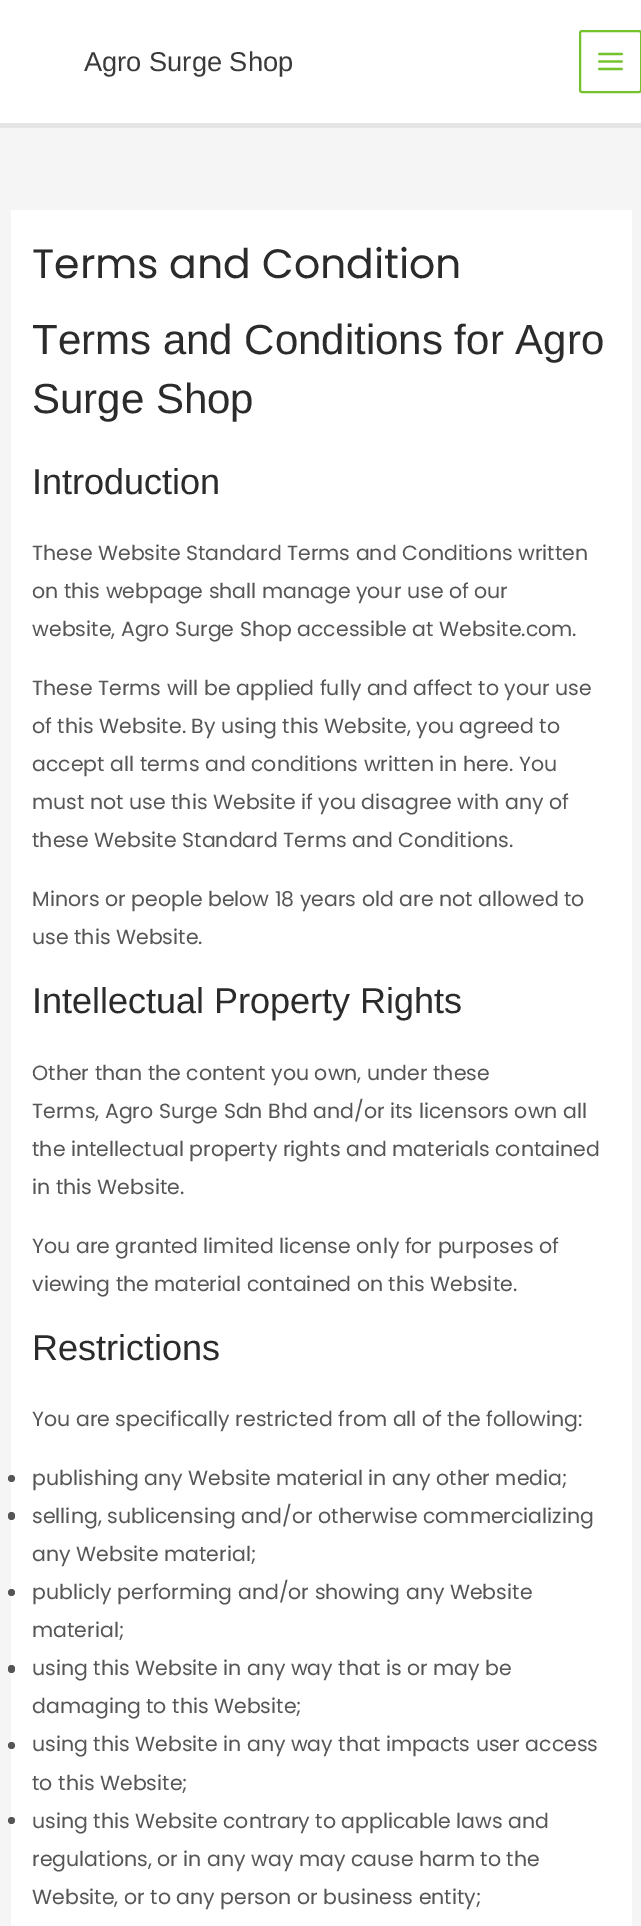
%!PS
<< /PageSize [641 1926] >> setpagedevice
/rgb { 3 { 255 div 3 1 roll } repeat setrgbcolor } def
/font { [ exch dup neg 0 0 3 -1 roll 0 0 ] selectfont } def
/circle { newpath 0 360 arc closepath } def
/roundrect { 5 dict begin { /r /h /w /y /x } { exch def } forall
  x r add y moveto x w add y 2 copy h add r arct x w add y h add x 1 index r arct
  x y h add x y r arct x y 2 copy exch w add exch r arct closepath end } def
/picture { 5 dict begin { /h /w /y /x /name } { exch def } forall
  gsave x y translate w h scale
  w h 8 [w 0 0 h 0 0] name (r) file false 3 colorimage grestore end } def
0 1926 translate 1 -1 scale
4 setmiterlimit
245 245 245 rgb
0 0 641 1926 rectfill
255 255 255 rgb
0 0 641 123 rectfill
229 229 229 rgb
0 123 641 5 rectfill
117 195 44 rgb
2 setlinewidth
580 31 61 61 2 roundrect stroke
(img/1.rgb) 598 52 25 19 picture
255 255 255 rgb
11 210 621 1716 rectfill
86 86 86 rgb
11.5 1478.5 3.5 circle fill
8 1512 7 8 3.5 roundrect fill
11.5 1592.5 3.5 circle fill
8 1665 7 8 3.5 roundrect fill
11.5 1745.5 3.5 circle fill
11.5 1820.5 3.5 circle fill
/LiberationSans-Regular 27.25 font
58 58 58 rgb
84 71 moveto (Agro Surge Shop) show
/Poppins-Regular 41 font
43 43 43 rgb
32 278 moveto (Terms and Condition) show
/LiberationSans-Regular 42 font
32 354 moveto (Terms and Conditions for Agro) show
32 413 moveto (Surge Shop) show
/LiberationSans-Regular 36 font
32 494 moveto (Introduction) show
/Poppins-Regular 20.5 font
86 86 86 rgb
[
  [(These Website Standard Terms and Conditions written) 32 560]
  [(on this webpage shall manage your use of our) 32 598]
  [(website, Agro Surge Shop accessible at Website.com.) 32 636]
  [(These Terms will be applied fully and affect to your use) 32 695]
  [(of this Website. By using this Website, you agreed to) 32 733]
  [(accept all terms and conditions written in here. You) 32 771]
  [(must not use this Website if you disagree with any of) 32 809]
  [(these Website Standard Terms and Conditions.) 32 847]
  [(Minors or people below 18 years old are not allowed to) 32 906]
  [(use this Website.) 32 944]
] { aload pop moveto show } forall
/LiberationSans-Regular 36 font
43 43 43 rgb
32 1013 moveto (Intellectual Property Rights) show
/Poppins-Regular 20.5 font
86 86 86 rgb
[
  [(Other than the content you own, under these) 32 1080]
  [(Terms, Agro Surge Sdn Bhd and/or its licensors own all) 32 1118]
  [(the intellectual property rights and materials contained) 32 1156]
  [(in this Website.) 32 1194]
  [(You are granted limited license only for purposes of) 32 1253]
  [(viewing the material contained on this Website.) 32 1291]
] { aload pop moveto show } forall
/LiberationSans-Regular 36 font
43 43 43 rgb
32 1360 moveto (Restrictions) show
/Poppins-Regular 20.5 font
86 86 86 rgb
[
  [(You are specifically restricted from all of the following:) 32 1426]
  [(publishing any Website material in any other media;) 32 1485]
  [(selling, sublicensing and/or otherwise commercializing) 32 1523]
  [(any Website material;) 32 1561]
  [(publicly performing and/or showing any Website) 32 1599]
  [(material;) 32 1637]
  [(using this Website in any way that is or may be) 32 1675]
  [(damaging to this Website;) 32 1713]
  [(using this Website in any way that impacts user access) 32 1751]
  [(to this Website;) 32 1790]
  [(using this Website contrary to applicable laws and) 32 1828]
  [(regulations, or in any way may cause harm to the) 32 1866]
  [(Website, or to any person or business entity;) 32 1904]
] { aload pop moveto show } forall
showpage
